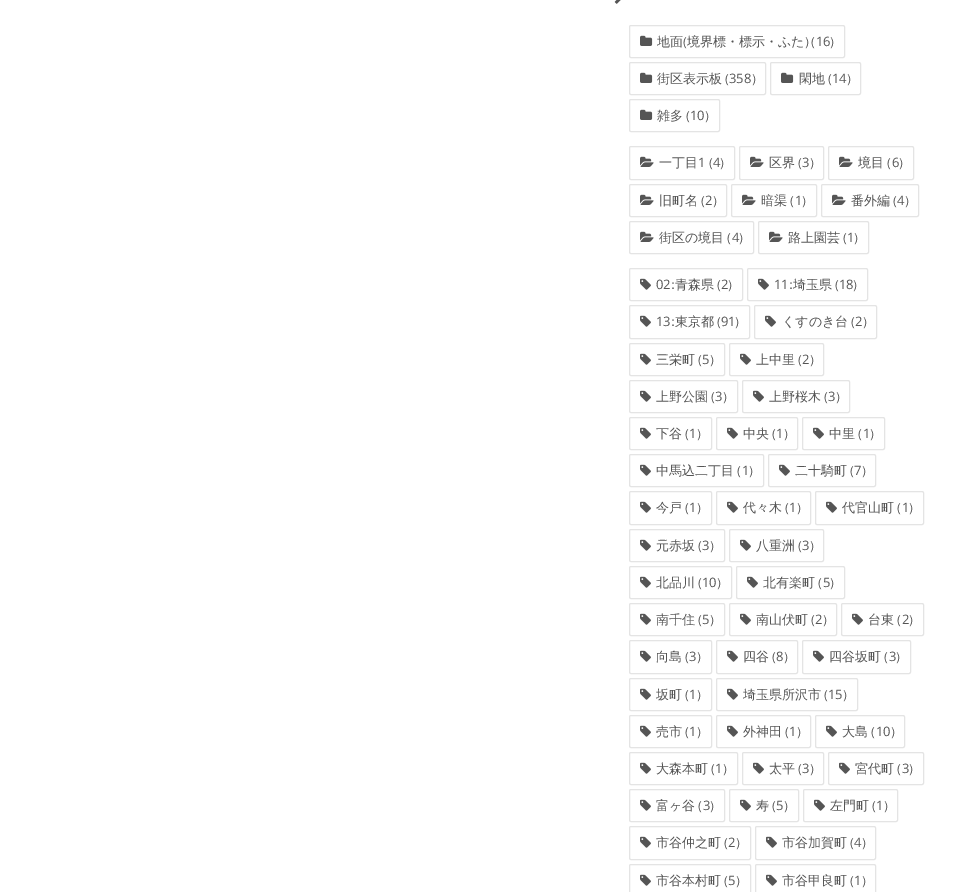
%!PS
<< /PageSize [977 892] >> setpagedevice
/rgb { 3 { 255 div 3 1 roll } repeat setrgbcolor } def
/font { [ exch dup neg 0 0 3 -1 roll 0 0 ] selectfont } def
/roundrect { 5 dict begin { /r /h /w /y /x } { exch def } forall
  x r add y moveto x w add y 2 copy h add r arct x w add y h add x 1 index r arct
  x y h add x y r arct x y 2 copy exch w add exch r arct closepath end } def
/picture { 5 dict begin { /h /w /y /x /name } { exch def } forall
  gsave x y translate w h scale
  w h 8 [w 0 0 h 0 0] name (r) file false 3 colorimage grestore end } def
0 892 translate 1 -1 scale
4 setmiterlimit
255 255 255 rgb
0 0 977 892 rectfill
(img/1.rgb) 614 0 7 4 picture
228 228 228 rgb
629.5 25.5 215 32 1.5 roundrect stroke
(img/2.rgb) 640 35 13 11 picture
629.5 62.5 136 32 1.5 roundrect stroke
(img/2.rgb) 640 72 13 11 picture
770.5 62.5 90 32 1.5 roundrect stroke
(img/2.rgb) 781 72 13 11 picture
629.5 99.5 90 32 1.5 roundrect stroke
(img/2.rgb) 640 109 13 11 picture
629.5 146.5 105 33 1.5 roundrect stroke
(img/3.rgb) 640 156 14 11 picture
739.5 146.5 84 33 1.5 roundrect stroke
(img/3.rgb) 750 156 14 11 picture
828.5 146.5 85 33 1.5 roundrect stroke
(img/3.rgb) 839 156 14 11 picture
629.5 184.5 97 32 1.5 roundrect stroke
(img/3.rgb) 640 194 14 11 picture
731.5 184.5 85 32 1.5 roundrect stroke
(img/3.rgb) 742 194 14 11 picture
821.5 184.5 97 32 1.5 roundrect stroke
(img/3.rgb) 832 194 14 11 picture
629.5 221.5 124 32 1.5 roundrect stroke
(img/3.rgb) 640 231 14 11 picture
758.5 221.5 110 32 1.5 roundrect stroke
(img/3.rgb) 769 231 14 11 picture
629.5 268.5 113 32 1.5 roundrect stroke
(img/4.rgb) 640 278 11 12 picture
747.5 268.5 120 32 1.5 roundrect stroke
(img/4.rgb) 758 278 11 12 picture
629.5 305.5 120 33 1.5 roundrect stroke
(img/4.rgb) 640 315 11 12 picture
754.5 305.5 122 33 1.5 roundrect stroke
(img/4.rgb) 765 315 11 12 picture
629.5 343.5 95 32 1.5 roundrect stroke
(img/4.rgb) 640 353 11 12 picture
729.5 343.5 94 32 1.5 roundrect stroke
(img/4.rgb) 740 353 11 12 picture
629.5 380.5 108 32 1.5 roundrect stroke
(img/4.rgb) 640 390 11 12 picture
742.5 380.5 107 32 1.5 roundrect stroke
(img/4.rgb) 753 390 11 12 picture
629.5 417.5 82 32 1.5 roundrect stroke
(img/4.rgb) 640 427 11 12 picture
716.5 417.5 81 32 1.5 roundrect stroke
(img/4.rgb) 727 427 11 12 picture
802.5 417.5 82 32 1.5 roundrect stroke
(img/4.rgb) 813 427 11 12 picture
629.5 454.5 134 32 1.5 roundrect stroke
(img/4.rgb) 640 464 11 12 picture
768.5 454.5 107 32 1.5 roundrect stroke
(img/4.rgb) 779 464 11 12 picture
629.5 491.5 82 33 1.5 roundrect stroke
(img/4.rgb) 640 501 11 12 picture
716.5 491.5 94 33 1.5 roundrect stroke
(img/4.rgb) 727 501 11 12 picture
815.5 491.5 108 33 1.5 roundrect stroke
(img/4.rgb) 826 501 11 12 picture
629.5 529.5 95 32 1.5 roundrect stroke
(img/4.rgb) 640 539 11 12 picture
729.5 529.5 94 32 1.5 roundrect stroke
(img/4.rgb) 740 539 11 12 picture
629.5 566.5 102 32 1.5 roundrect stroke
(img/4.rgb) 640 576 11 12 picture
736.5 566.5 108 32 1.5 roundrect stroke
(img/4.rgb) 747 576 11 12 picture
629.5 603.5 95 32 1.5 roundrect stroke
(img/4.rgb) 640 613 11 12 picture
729.5 603.5 107 32 1.5 roundrect stroke
(img/4.rgb) 740 613 11 12 picture
841.5 603.5 82 32 1.5 roundrect stroke
(img/4.rgb) 852 613 11 12 picture
629.5 640.5 82 33 1.5 roundrect stroke
(img/4.rgb) 640 650 11 12 picture
716.5 640.5 81 33 1.5 roundrect stroke
(img/4.rgb) 727 650 11 12 picture
802.5 640.5 108 33 1.5 roundrect stroke
(img/4.rgb) 813 650 11 12 picture
629.5 678.5 82 32 1.5 roundrect stroke
(img/4.rgb) 640 688 11 12 picture
716.5 678.5 141 32 1.5 roundrect stroke
(img/4.rgb) 727 688 11 12 picture
629.5 715.5 82 32 1.5 roundrect stroke
(img/4.rgb) 640 725 11 12 picture
716.5 715.5 94 32 1.5 roundrect stroke
(img/4.rgb) 727 725 11 12 picture
815.5 715.5 89 32 1.5 roundrect stroke
(img/4.rgb) 826 725 11 12 picture
629.5 752.5 108 32 1.5 roundrect stroke
(img/4.rgb) 640 762 11 12 picture
742.5 752.5 81 32 1.5 roundrect stroke
(img/4.rgb) 753 762 11 12 picture
828.5 752.5 95 32 1.5 roundrect stroke
(img/4.rgb) 839 762 11 12 picture
629.5 789.5 95 32 1.5 roundrect stroke
(img/4.rgb) 640 799 11 12 picture
729.5 789.5 69 32 1.5 roundrect stroke
(img/4.rgb) 740 799 11 12 picture
803.5 789.5 94 32 1.5 roundrect stroke
(img/4.rgb) 814 799 11 12 picture
629.5 826.5 121 33 1.5 roundrect stroke
(img/4.rgb) 640 836 11 12 picture
755.5 826.5 120 33 1.5 roundrect stroke
(img/4.rgb) 766 836 11 12 picture
629.5 864.5 121 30 1.5 roundrect stroke
(img/4.rgb) 640 874 11 12 picture
755.5 864.5 120 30 1.5 roundrect stroke
(img/4.rgb) 766 874 11 12 picture
/WenQuanYiZenHei-Medium 13 font
85 85 85 rgb
657 46 moveto -1 0 32 (地面\(境界標・標示・ふた\) \() widthshow
/OpenSans-Regular 13 font
816 46 moveto (16) show
/WenQuanYiZenHei-Medium 13 font
830 46 moveto (\)) show
657 83 moveto -1 0 32 (街区表示板 \() widthshow
/OpenSans-Regular 13 font
729 83 moveto (358) show
/WenQuanYiZenHei-Medium 13 font
752 83 moveto (\)) show
799 83 moveto -1 0 32 (閑地 \() widthshow
/OpenSans-Regular 13 font
832 83 moveto (14) show
/WenQuanYiZenHei-Medium 13 font
847 83 moveto (\)) show
657 120 moveto -1 0 32 (雑多 \() widthshow
/OpenSans-Regular 13 font
690 120 moveto (10) show
/WenQuanYiZenHei-Medium 13 font
705 120 moveto (\)) show
659 167 moveto (一丁目) show
/OpenSans-Regular 13 font
698 167 moveto (1) show
/WenQuanYiZenHei-Medium 13 font
709 167 moveto (\() show
/OpenSans-Regular 13 font
713 167 moveto (4) show
/WenQuanYiZenHei-Medium 13 font
720 167 moveto (\)) show
769 167 moveto -1 0 32 (区界 \() widthshow
/OpenSans-Regular 13 font
802 167 moveto (3) show
/WenQuanYiZenHei-Medium 13 font
810 167 moveto (\)) show
858 167 moveto -1 0 32 (境目 \() widthshow
/OpenSans-Regular 13 font
892 167 moveto (6) show
/WenQuanYiZenHei-Medium 13 font
899 167 moveto (\)) show
659 205 moveto -1 0 32 (旧町名 \() widthshow
/OpenSans-Regular 13 font
705 205 moveto (2) show
/WenQuanYiZenHei-Medium 13 font
713 205 moveto (\)) show
761 205 moveto -1 0 32 (暗渠 \() widthshow
/OpenSans-Regular 13 font
795 205 moveto (1) show
/WenQuanYiZenHei-Medium 13 font
802 205 moveto (\)) show
851 205 moveto -1 0 32 (番外編 \() widthshow
/OpenSans-Regular 13 font
897 205 moveto (4) show
/WenQuanYiZenHei-Medium 13 font
905 205 moveto (\)) show
659 242 moveto -1 0 32 (街区の境目 \() widthshow
/OpenSans-Regular 13 font
732 242 moveto (4) show
/WenQuanYiZenHei-Medium 13 font
739 242 moveto (\)) show
788 242 moveto -1 0 32 (路上園芸 \() widthshow
/OpenSans-Regular 13 font
847 242 moveto (1) show
/WenQuanYiZenHei-Medium 13 font
854 242 moveto (\)) show
/OpenSans-Regular 13 font
656 289 moveto (02) show
/WenQuanYiZenHei-Medium 13 font
671 289 moveto -1 0 32 (:青森県 \() widthshow
/OpenSans-Regular 13 font
721 289 moveto (2) show
/WenQuanYiZenHei-Medium 13 font
728 289 moveto (\)) show
/OpenSans-Regular 13 font
774 289 moveto (11) show
/WenQuanYiZenHei-Medium 13 font
789 289 moveto -1 0 32 (:埼玉県 \() widthshow
/OpenSans-Regular 13 font
839 289 moveto (18) show
/WenQuanYiZenHei-Medium 13 font
853 289 moveto (\)) show
/OpenSans-Regular 13 font
656 326 moveto (13) show
/WenQuanYiZenHei-Medium 13 font
671 326 moveto -1 0 32 (:東京都 \() widthshow
/OpenSans-Regular 13 font
721 326 moveto (91) show
/WenQuanYiZenHei-Medium 13 font
735 326 moveto (\)) show
782 326 moveto -1 0 32 (くすのき台 \() widthshow
/OpenSans-Regular 13 font
855 326 moveto (2) show
/WenQuanYiZenHei-Medium 13 font
863 326 moveto (\)) show
656 364 moveto -1 0 32 (三栄町 \() widthshow
/OpenSans-Regular 13 font
702 364 moveto (5) show
/WenQuanYiZenHei-Medium 13 font
710 364 moveto (\)) show
756 364 moveto -1 0 32 (上中里 \() widthshow
/OpenSans-Regular 13 font
802 364 moveto (2) show
/WenQuanYiZenHei-Medium 13 font
810 364 moveto (\)) show
656 401 moveto -1 0 32 (上野公園 \() widthshow
/OpenSans-Regular 13 font
715 401 moveto (3) show
/WenQuanYiZenHei-Medium 13 font
723 401 moveto (\)) show
769 401 moveto -1 0 32 (上野桜木 \() widthshow
/OpenSans-Regular 13 font
828 401 moveto (3) show
/WenQuanYiZenHei-Medium 13 font
836 401 moveto (\)) show
656 438 moveto -1 0 32 (下谷 \() widthshow
/OpenSans-Regular 13 font
689 438 moveto (1) show
/WenQuanYiZenHei-Medium 13 font
697 438 moveto (\)) show
743 438 moveto -1 0 32 (中央 \() widthshow
/OpenSans-Regular 13 font
776 438 moveto (1) show
/WenQuanYiZenHei-Medium 13 font
784 438 moveto (\)) show
829 438 moveto -1 0 32 (中里 \() widthshow
/OpenSans-Regular 13 font
863 438 moveto (1) show
/WenQuanYiZenHei-Medium 13 font
870 438 moveto (\)) show
656 475 moveto -1 0 32 (中馬込二丁目 \() widthshow
/OpenSans-Regular 13 font
742 475 moveto (1) show
/WenQuanYiZenHei-Medium 13 font
749 475 moveto (\)) show
795 475 moveto -1 0 32 (二十騎町 \() widthshow
/OpenSans-Regular 13 font
854 475 moveto (7) show
/WenQuanYiZenHei-Medium 13 font
862 475 moveto (\)) show
656 512 moveto -1 0 32 (今戸 \() widthshow
/OpenSans-Regular 13 font
689 512 moveto (1) show
/WenQuanYiZenHei-Medium 13 font
697 512 moveto (\)) show
743 512 moveto -1 0 32 (代々木 \() widthshow
/OpenSans-Regular 13 font
789 512 moveto (1) show
/WenQuanYiZenHei-Medium 13 font
797 512 moveto (\)) show
842 512 moveto -1 0 32 (代官山町 \() widthshow
/OpenSans-Regular 13 font
902 512 moveto (1) show
/WenQuanYiZenHei-Medium 13 font
909 512 moveto (\)) show
656 550 moveto -1 0 32 (元赤坂 \() widthshow
/OpenSans-Regular 13 font
702 550 moveto (3) show
/WenQuanYiZenHei-Medium 13 font
710 550 moveto (\)) show
756 550 moveto -1 0 32 (八重洲 \() widthshow
/OpenSans-Regular 13 font
802 550 moveto (3) show
/WenQuanYiZenHei-Medium 13 font
810 550 moveto (\)) show
656 587 moveto -1 0 32 (北品川 \() widthshow
/OpenSans-Regular 13 font
702 587 moveto (10) show
/WenQuanYiZenHei-Medium 13 font
717 587 moveto (\)) show
763 587 moveto -1 0 32 (北有楽町 \() widthshow
/OpenSans-Regular 13 font
823 587 moveto (5) show
/WenQuanYiZenHei-Medium 13 font
830 587 moveto (\)) show
656 624 moveto -1 0 32 (南千住 \() widthshow
/OpenSans-Regular 13 font
702 624 moveto (5) show
/WenQuanYiZenHei-Medium 13 font
710 624 moveto (\)) show
756 624 moveto -1 0 32 (南山伏町 \() widthshow
/OpenSans-Regular 13 font
815 624 moveto (2) show
/WenQuanYiZenHei-Medium 13 font
823 624 moveto (\)) show
868 624 moveto -1 0 32 (台東 \() widthshow
/OpenSans-Regular 13 font
902 624 moveto (2) show
/WenQuanYiZenHei-Medium 13 font
909 624 moveto (\)) show
656 661 moveto -1 0 32 (向島 \() widthshow
/OpenSans-Regular 13 font
689 661 moveto (3) show
/WenQuanYiZenHei-Medium 13 font
697 661 moveto (\)) show
743 661 moveto -1 0 32 (四谷 \() widthshow
/OpenSans-Regular 13 font
776 661 moveto (8) show
/WenQuanYiZenHei-Medium 13 font
784 661 moveto (\)) show
829 661 moveto -1 0 32 (四谷坂町 \() widthshow
/OpenSans-Regular 13 font
889 661 moveto (3) show
/WenQuanYiZenHei-Medium 13 font
896 661 moveto (\)) show
656 699 moveto -1 0 32 (坂町 \() widthshow
/OpenSans-Regular 13 font
689 699 moveto (1) show
/WenQuanYiZenHei-Medium 13 font
697 699 moveto (\)) show
743 699 moveto -1 0 32 (埼玉県所沢市 \() widthshow
/OpenSans-Regular 13 font
828 699 moveto (15) show
/WenQuanYiZenHei-Medium 13 font
843 699 moveto (\)) show
656 736 moveto -1 0 32 (売市 \() widthshow
/OpenSans-Regular 13 font
689 736 moveto (1) show
/WenQuanYiZenHei-Medium 13 font
697 736 moveto (\)) show
743 736 moveto -1 0 32 (外神田 \() widthshow
/OpenSans-Regular 13 font
789 736 moveto (1) show
/WenQuanYiZenHei-Medium 13 font
797 736 moveto (\)) show
842 736 moveto -1 0 32 (大島 \() widthshow
/OpenSans-Regular 13 font
876 736 moveto (10) show
/WenQuanYiZenHei-Medium 13 font
891 736 moveto (\)) show
656 773 moveto -1 0 32 (大森本町 \() widthshow
/OpenSans-Regular 13 font
715 773 moveto (1) show
/WenQuanYiZenHei-Medium 13 font
723 773 moveto (\)) show
769 773 moveto -1 0 32 (太平 \() widthshow
/OpenSans-Regular 13 font
802 773 moveto (3) show
/WenQuanYiZenHei-Medium 13 font
810 773 moveto (\)) show
855 773 moveto -1 0 32 (宮代町 \() widthshow
/OpenSans-Regular 13 font
902 773 moveto (3) show
/WenQuanYiZenHei-Medium 13 font
909 773 moveto (\)) show
656 810 moveto -1 0 32 (富ヶ谷 \() widthshow
/OpenSans-Regular 13 font
703 810 moveto (3) show
/WenQuanYiZenHei-Medium 13 font
710 810 moveto (\)) show
756 810 moveto -1 0 32 (寿 \() widthshow
/OpenSans-Regular 13 font
776 810 moveto (5) show
/WenQuanYiZenHei-Medium 13 font
784 810 moveto (\)) show
830 810 moveto -1 0 32 (左門町 \() widthshow
/OpenSans-Regular 13 font
876 810 moveto (1) show
/WenQuanYiZenHei-Medium 13 font
884 810 moveto (\)) show
656 847 moveto -1 0 32 (市谷仲之町 \() widthshow
/OpenSans-Regular 13 font
728 847 moveto (2) show
/WenQuanYiZenHei-Medium 13 font
736 847 moveto (\)) show
782 847 moveto -1 0 32 (市谷加賀町 \() widthshow
/OpenSans-Regular 13 font
854 847 moveto (4) show
/WenQuanYiZenHei-Medium 13 font
862 847 moveto (\)) show
656 885 moveto -1 0 32 (市谷本村町 \() widthshow
/OpenSans-Regular 13 font
728 885 moveto (5) show
/WenQuanYiZenHei-Medium 13 font
736 885 moveto (\)) show
782 885 moveto -1 0 32 (市谷甲良町 \() widthshow
/OpenSans-Regular 13 font
854 885 moveto (1) show
/WenQuanYiZenHei-Medium 13 font
862 885 moveto (\)) show
showpage
